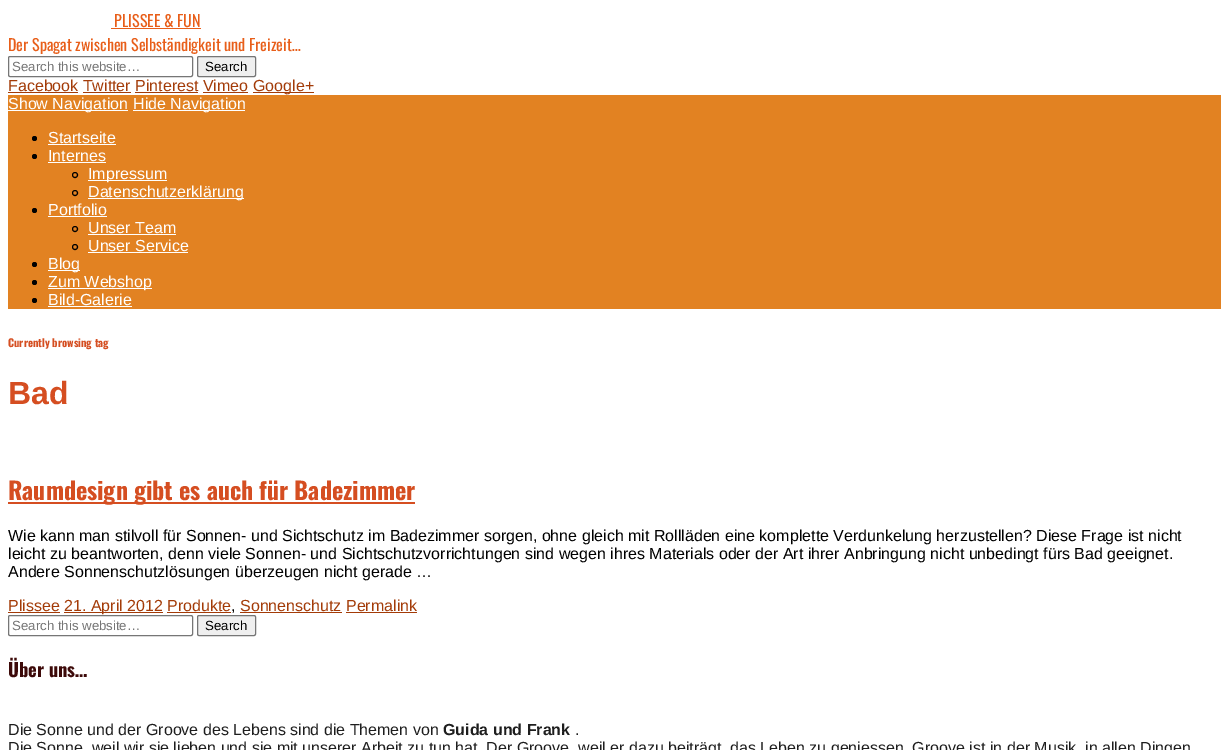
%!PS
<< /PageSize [1229 750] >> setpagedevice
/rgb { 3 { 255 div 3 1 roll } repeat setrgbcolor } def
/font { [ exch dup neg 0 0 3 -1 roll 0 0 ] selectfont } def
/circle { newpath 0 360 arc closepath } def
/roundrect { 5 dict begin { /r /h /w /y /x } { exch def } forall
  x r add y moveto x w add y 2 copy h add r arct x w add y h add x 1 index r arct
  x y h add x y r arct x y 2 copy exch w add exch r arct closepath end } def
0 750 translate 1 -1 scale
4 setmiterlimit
255 255 255 rgb
0 0 1229 750 rectfill
232 94 25 rgb
111 28 90 1 rectfill
118 118 118 rgb
8.5 56.5 184 20 1.5 roundrect stroke
239 239 239 rgb
197.5 56.5 58 20 1.5 roundrect gsave fill grestore
118 118 118 rgb
stroke
[
  [8 92 70 1 163 59 8]
  [253 92 61 1 163 59 8]
  [83 92 48 1 163 59 8]
  [135 92 63 1 163 59 8]
  [203 92 45 1 163 59 8]
  [8 95 1213 214 226 130 34]
  [8 110 120 1 255 255 255]
  [133 110 112 1 255 255 255]
] { aload pop rgb rectfill } forall
0 0 0 rgb
34.5 138.5 2.5 circle fill
255 255 255 rgb
48 144 68 1 rectfill
0 0 0 rgb
34.5 156.5 2.5 circle fill
255 255 255 rgb
48 162 58 1 rectfill
0 0 0 rgb
75 175 2.5 circle stroke
255 255 255 rgb
88 180 79 1 rectfill
0 0 0 rgb
75 193 2.5 circle stroke
255 255 255 rgb
88 198 156 1 rectfill
0 0 0 rgb
34.5 210.5 2.5 circle fill
255 255 255 rgb
48 216 59 1 rectfill
0 0 0 rgb
75 229 2.5 circle stroke
255 255 255 rgb
88 234 88 1 rectfill
0 0 0 rgb
75 247 2.5 circle stroke
255 255 255 rgb
88 252 100 1 rectfill
0 0 0 rgb
34.5 264.5 2.5 circle fill
255 255 255 rgb
48 270 32 1 rectfill
0 0 0 rgb
34.5 282.5 2.5 circle fill
255 255 255 rgb
48 288 104 1 rectfill
0 0 0 rgb
34.5 300.5 2.5 circle fill
[
  [48 306 84 1 255 255 255]
  [8 502 407 2 213 78 33]
  [8 612 52 1 163 59 8]
  [64 612 99 1 163 59 8]
  [167 612 64 1 163 59 8]
  [240 612 102 1 163 59 8]
  [346 612 71 1 163 59 8]
] { aload pop rgb rectfill } forall
118 118 118 rgb
8.5 615.5 184 20 1.5 roundrect stroke
239 239 239 rgb
197.5 615.5 58 20 1.5 roundrect gsave fill grestore
118 118 118 rgb
stroke
/Oswald-Regular 16 font
232 94 25 rgb
114 27 moveto (PLISSEE & FUN) show
8 51 moveto (Der Spagat zwischen Selbständigkeit und Freizeit…) show
/LiberationSans-Regular 13.25 font
117 117 117 rgb
12 71 moveto (Search this website…) show
0 0 0 rgb
205 71 moveto (Search) show
/LiberationSans-Regular 16 font
163 59 8 rgb
8 91 moveto (Facebook Twitter Pinterest Vimeo) show
253 91 moveto (Google+) show
255 255 255 rgb
[
  [(Show Navigation) 8 109]
  [(Hide Navigation) 133 109]
  [(Startseite) 48 143]
  [(Internes) 48 161]
  [(Impressum) 88 179]
  [(Datenschutzerklärung) 88 197]
  [(Portfolio) 48 215]
  [(Unser Team) 88 233]
  [(Unser Service) 88 251]
  [(Blog) 48 269]
  [(Zum Webshop) 48 287]
  [(Bild-Galerie) 48 305]
] { aload pop moveto show } forall
/Oswald-Bold 10.75 font
213 78 33 rgb
8 347 moveto (Currently browsing tag) show
/LiberationSans-Bold 32 font
8 404 moveto (Bad) show
/Oswald-Bold 24 font
8 500 moveto (Raumdesign gibt es auch für Badezimmer) show
/LiberationSans-Regular 16 font
0 0 0 rgb
[
  [(Wie kann man stilvoll für Sonnen- und Sichtschutz im Badezimmer sorgen, ohne gleich mit Rollläden eine komplette Verdunkelung herzustellen? Diese Frage ist nicht) 8 541]
  [(leicht zu beantworten, denn viele Sonnen- und Sichtschutzvorrichtungen sind wegen ihres Materials oder der Art ihrer Anbringung nicht unbedingt fürs Bad geeignet.) 8 559]
  [(Andere Sonnenschutzlösungen überzeugen nicht gerade …) 8 577]
] { aload pop moveto show } forall
163 59 8 rgb
8 611 moveto (Plissee) show
64 611 moveto (21. April 2012 Produkte) show
0 0 0 rgb
231 611 moveto (,) show
163 59 8 rgb
240 611 moveto (Sonnenschutz Permalink) show
/LiberationSans-Regular 13.25 font
117 117 117 rgb
12 630 moveto (Search this website…) show
0 0 0 rgb
205 630 moveto (Search) show
/Oswald-Bold 18.5 font
61 10 9 rgb
8 677 moveto (Über uns…) show
/LiberationSans-Regular 16 font
30 30 30 rgb
8 735 moveto (Die Sonne und der Groove des Lebens sind die Themen von) show
/LiberationSans-Bold 16 font
443 735 moveto (Guida und Frank) show
/LiberationSans-Regular 16 font
575 735 moveto (.) show
8 753 moveto (Die Sonne, weil wir sie lieben und sie mit unserer Arbeit zu tun hat. Der Groove, weil er dazu beiträgt, das Leben zu geniessen. Groove ist in der Musik, in allen Dingen) show
showpage
